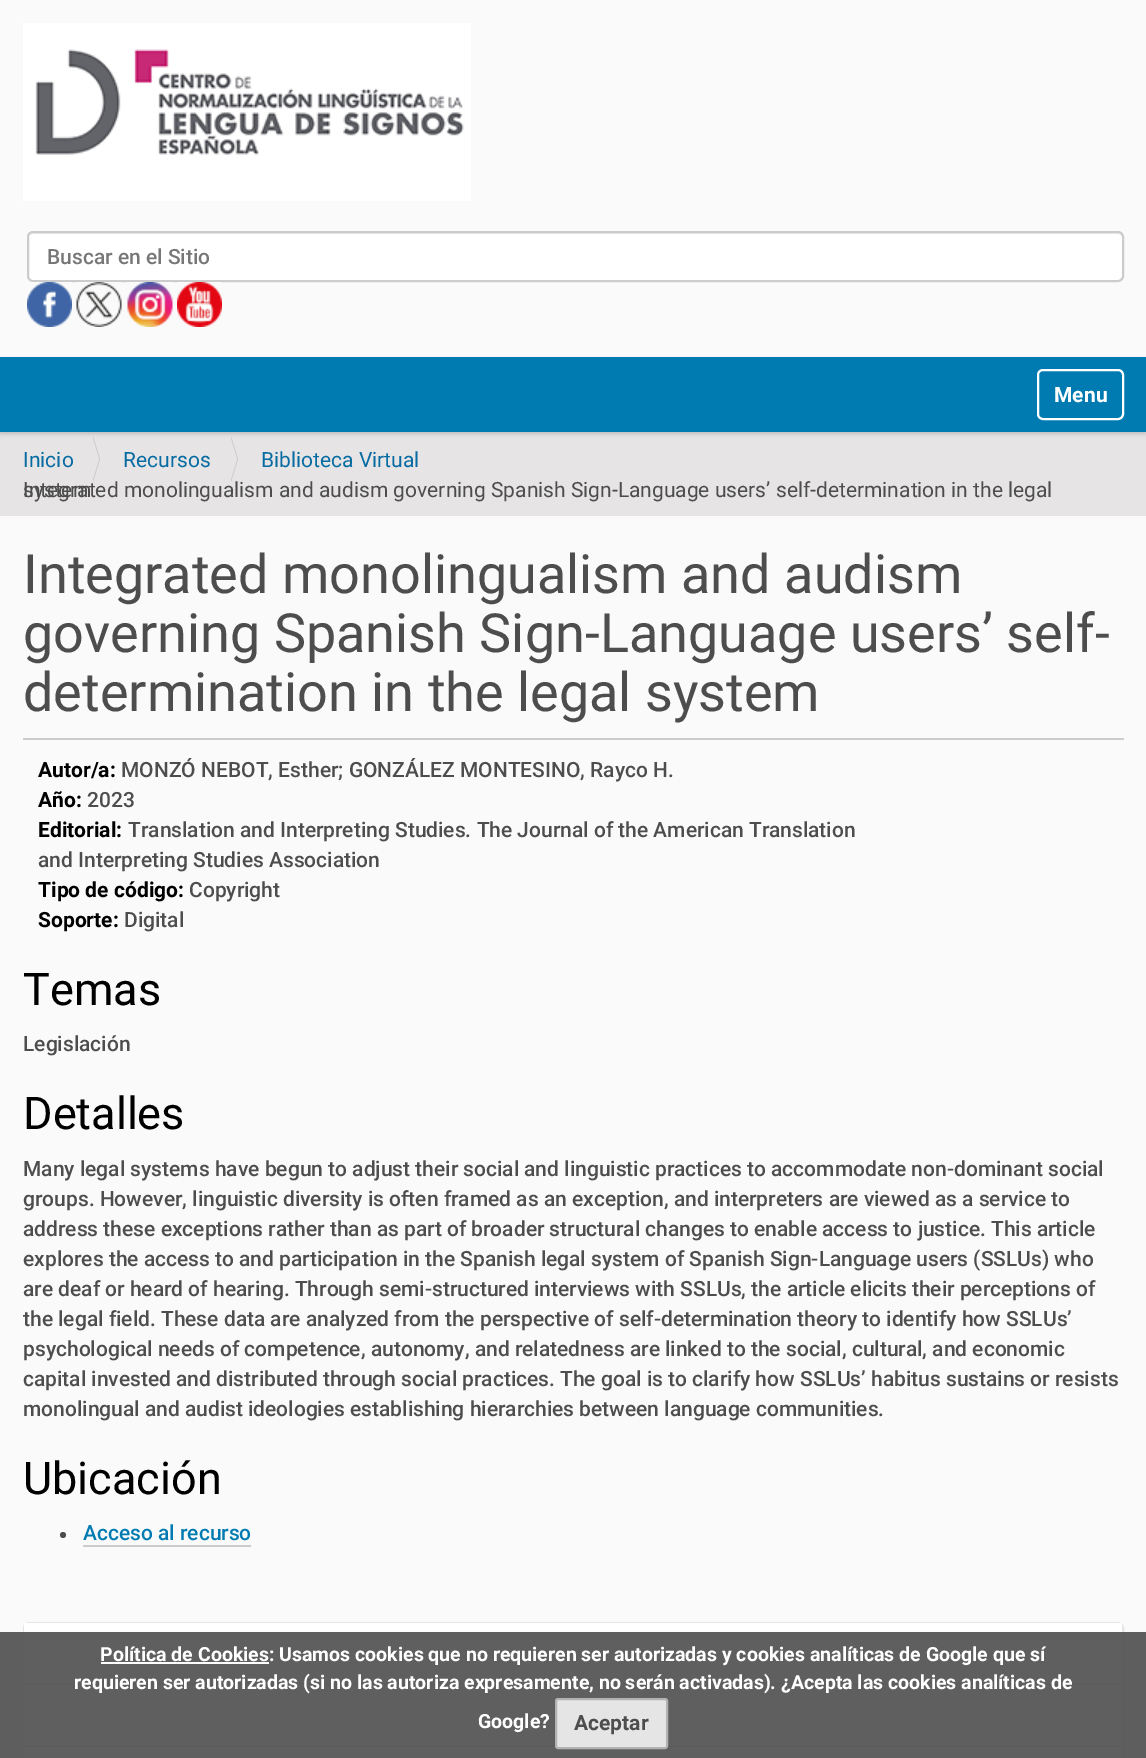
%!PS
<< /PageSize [1146 1758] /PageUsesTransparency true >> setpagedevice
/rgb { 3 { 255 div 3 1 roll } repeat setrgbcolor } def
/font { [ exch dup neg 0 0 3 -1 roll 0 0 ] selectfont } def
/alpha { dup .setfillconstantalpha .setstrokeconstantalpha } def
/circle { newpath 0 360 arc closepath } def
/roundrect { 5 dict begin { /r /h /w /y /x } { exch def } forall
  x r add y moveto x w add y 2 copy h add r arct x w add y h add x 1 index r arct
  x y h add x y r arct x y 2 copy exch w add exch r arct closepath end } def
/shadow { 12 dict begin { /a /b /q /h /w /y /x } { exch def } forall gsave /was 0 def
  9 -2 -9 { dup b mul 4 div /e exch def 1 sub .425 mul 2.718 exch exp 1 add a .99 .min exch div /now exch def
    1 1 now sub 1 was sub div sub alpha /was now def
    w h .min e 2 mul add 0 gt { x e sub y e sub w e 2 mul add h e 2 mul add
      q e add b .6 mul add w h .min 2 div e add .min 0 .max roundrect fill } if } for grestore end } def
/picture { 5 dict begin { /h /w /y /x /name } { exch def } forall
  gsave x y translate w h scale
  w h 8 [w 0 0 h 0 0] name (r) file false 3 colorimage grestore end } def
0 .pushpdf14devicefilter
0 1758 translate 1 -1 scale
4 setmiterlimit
250 250 250 rgb
0 0 1146 1758 rectfill
(img/1.rgb) 23 23 448 178 picture
255 255 255 rgb
27 231 1097 51 6 roundrect fill
236 236 236 rgb
33 234 moveto 1118 234 lineto 1120 234 1122 236 1122 238 curveto 1122 235 1120 233 1117 233 curveto 34 233 lineto 32 233 31 234 30 235 curveto closepath fill
204 204 204 rgb
2 setlinewidth
28 232 1095 49 5 roundrect stroke
(img/2.rgb) 27 282 45 45 picture
(img/3.rgb) 76 282 46 45 picture
(img/4.rgb) 127 282 46 45 picture
(img/5.rgb) 177 282 45 45 picture
230 228 228 rgb
0 432 1146 84 rectfill
0 0 0 rgb
0 359 1146 75 0 2 0.17 shadow
0 123 177 rgb
0 357 1146 75 rectfill
255 255 255 rgb
1038 370 85 49 5 roundrect stroke
204 204 204 rgb
93 482 moveto 93 436 lineto 100 459 lineto closepath fill
230 228 228 rgb
92 482 moveto 92 436 lineto 99 459 lineto closepath fill
204 204 204 rgb
231 482 moveto 231 436 lineto 238 459 lineto closepath fill
230 228 228 rgb
230 482 moveto 230 436 lineto 237 459 lineto closepath fill
204 204 204 rgb
23 738 1101 2 rectfill
77 77 77 rgb
63 1535 3 circle fill
204 204 204 rgb
83 1545 168 2 rectfill
229 229 229 rgb
24 1623 1099 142 5 roundrect stroke
[
  [24 1623 1098 135 255 255 255]
  [24 1683 1098 2 229 229 229]
  [24 1745 1098 2 229 229 229]
] { aload pop rgb rectfill } forall
0.95 alpha
[
  [0 1632 1146 126 86 86 86]
] { aload pop rgb rectfill } forall
1 alpha
[
  [101 1662 168 2 255 255 255]
] { aload pop rgb rectfill } forall
229 229 229 rgb
556 1699 111 49 2 roundrect gsave fill grestore
178 178 178 rgb
stroke
/Roboto-Medium 21 font
119 119 119 rgb
47 264 moveto (Buscar en el Sitio) show
/Roboto-Bold 21 font
255 255 255 rgb
1054 402 moveto (Menu) show
/Roboto-Regular 21 font
8 108 163 rgb
[
  [(Inicio) 23 467]
  [(Recursos) 123 467]
  [(Biblioteca Virtual) 261 467]
] { aload pop moveto show } forall
77 77 77 rgb
23 497 moveto (Integrated monolingualism and audism governing Spanish Sign-Language users’ self-determination in the legal) show
23 497 moveto (system) show
/Roboto-Regular 54 font
[
  [(Integrated monolingualism and audism) 23 593]
  [(governing Spanish Sign-Language users’ self-) 23 652]
  [(determination in the legal system) 23 711]
] { aload pop moveto show } forall
/Roboto-Bold 21 font
0 0 0 rgb
38 777 moveto (Autor/a:) show
/Roboto-Medium 21 font
77 77 77 rgb
121 777 moveto (MONZÓ NEBOT, Esther; GONZÁLEZ MONTESINO, Rayco H.) show
/Roboto-Bold 21 font
0 0 0 rgb
38 807 moveto (Año:) show
/Roboto-Medium 21 font
77 77 77 rgb
87 807 moveto (2023) show
/Roboto-Bold 21 font
0 0 0 rgb
38 837 moveto (Editorial:) show
/Roboto-Medium 21 font
77 77 77 rgb
128 837 moveto (Translation and Interpreting Studies. The Journal of the American Translation) show
38 867 moveto (and Interpreting Studies Association) show
/Roboto-Bold 21 font
0 0 0 rgb
38 897 moveto (Tipo de código:) show
/Roboto-Medium 21 font
77 77 77 rgb
189 897 moveto (Copyright) show
/Roboto-Bold 21 font
0 0 0 rgb
38 927 moveto (Soporte:) show
/Roboto-Medium 21 font
77 77 77 rgb
124 927 moveto (Digital) show
/Roboto-Regular 45 font
0 0 0 rgb
23 1005 moveto (Temas) show
/Roboto-Medium 21 font
77 77 77 rgb
23 1051 moveto (Legislación) show
/Roboto-Regular 45 font
0 0 0 rgb
23 1129 moveto (Detalles) show
/Roboto-Medium 21 font
77 77 77 rgb
[
  [(Many legal systems have begun to adjust their social and linguistic practices to accommodate non-dominant social) 23 1176]
  [(groups. However, linguistic diversity is often framed as an exception, and interpreters are viewed as a service to) 23 1206]
  [(address these exceptions rather than as part of broader structural changes to enable access to justice. This article) 23 1236]
  [(explores the access to and participation in the Spanish legal system of Spanish Sign-Language users \(SSLUs\) who) 23 1266]
  [(are deaf or heard of hearing. Through semi-structured interviews with SSLUs, the article elicits their perceptions of) 23 1296]
  [(the legal field. These data are analyzed from the perspective of self-determination theory to identify how SSLUs’) 23 1326]
  [(psychological needs of competence, autonomy, and relatedness are linked to the social, cultural, and economic) 23 1356]
  [(capital invested and distributed through social practices. The goal is to clarify how SSLUs’ habitus sustains or resists) 23 1386]
  [(monolingual and audist ideologies establishing hierarchies between language communities.) 23 1416]
] { aload pop moveto show } forall
/Roboto-Regular 45 font
0 0 0 rgb
23 1494 moveto (Ubicación) show
/Roboto-Medium 21 font
0 123 177 rgb
83 1540 moveto (Acceso al recurso) show
/Roboto-Bold 19.5 font
255 255 255 rgb
[
  [(Política de Cookies: Usamos cookies que no requieren ser autorizadas y cookies analíticas de Google que sí) 100 1661]
  [(requieren ser autorizadas \(si no las autoriza expresamente, no serán activadas\). ¿Acepta las cookies analíticas de) 74 1689]
  [(Google?) 478 1728]
] { aload pop moveto show } forall
/Roboto-Bold 21 font
77 77 77 rgb
574 1730 moveto (Aceptar) show
.poppdf14devicefilter showpage
